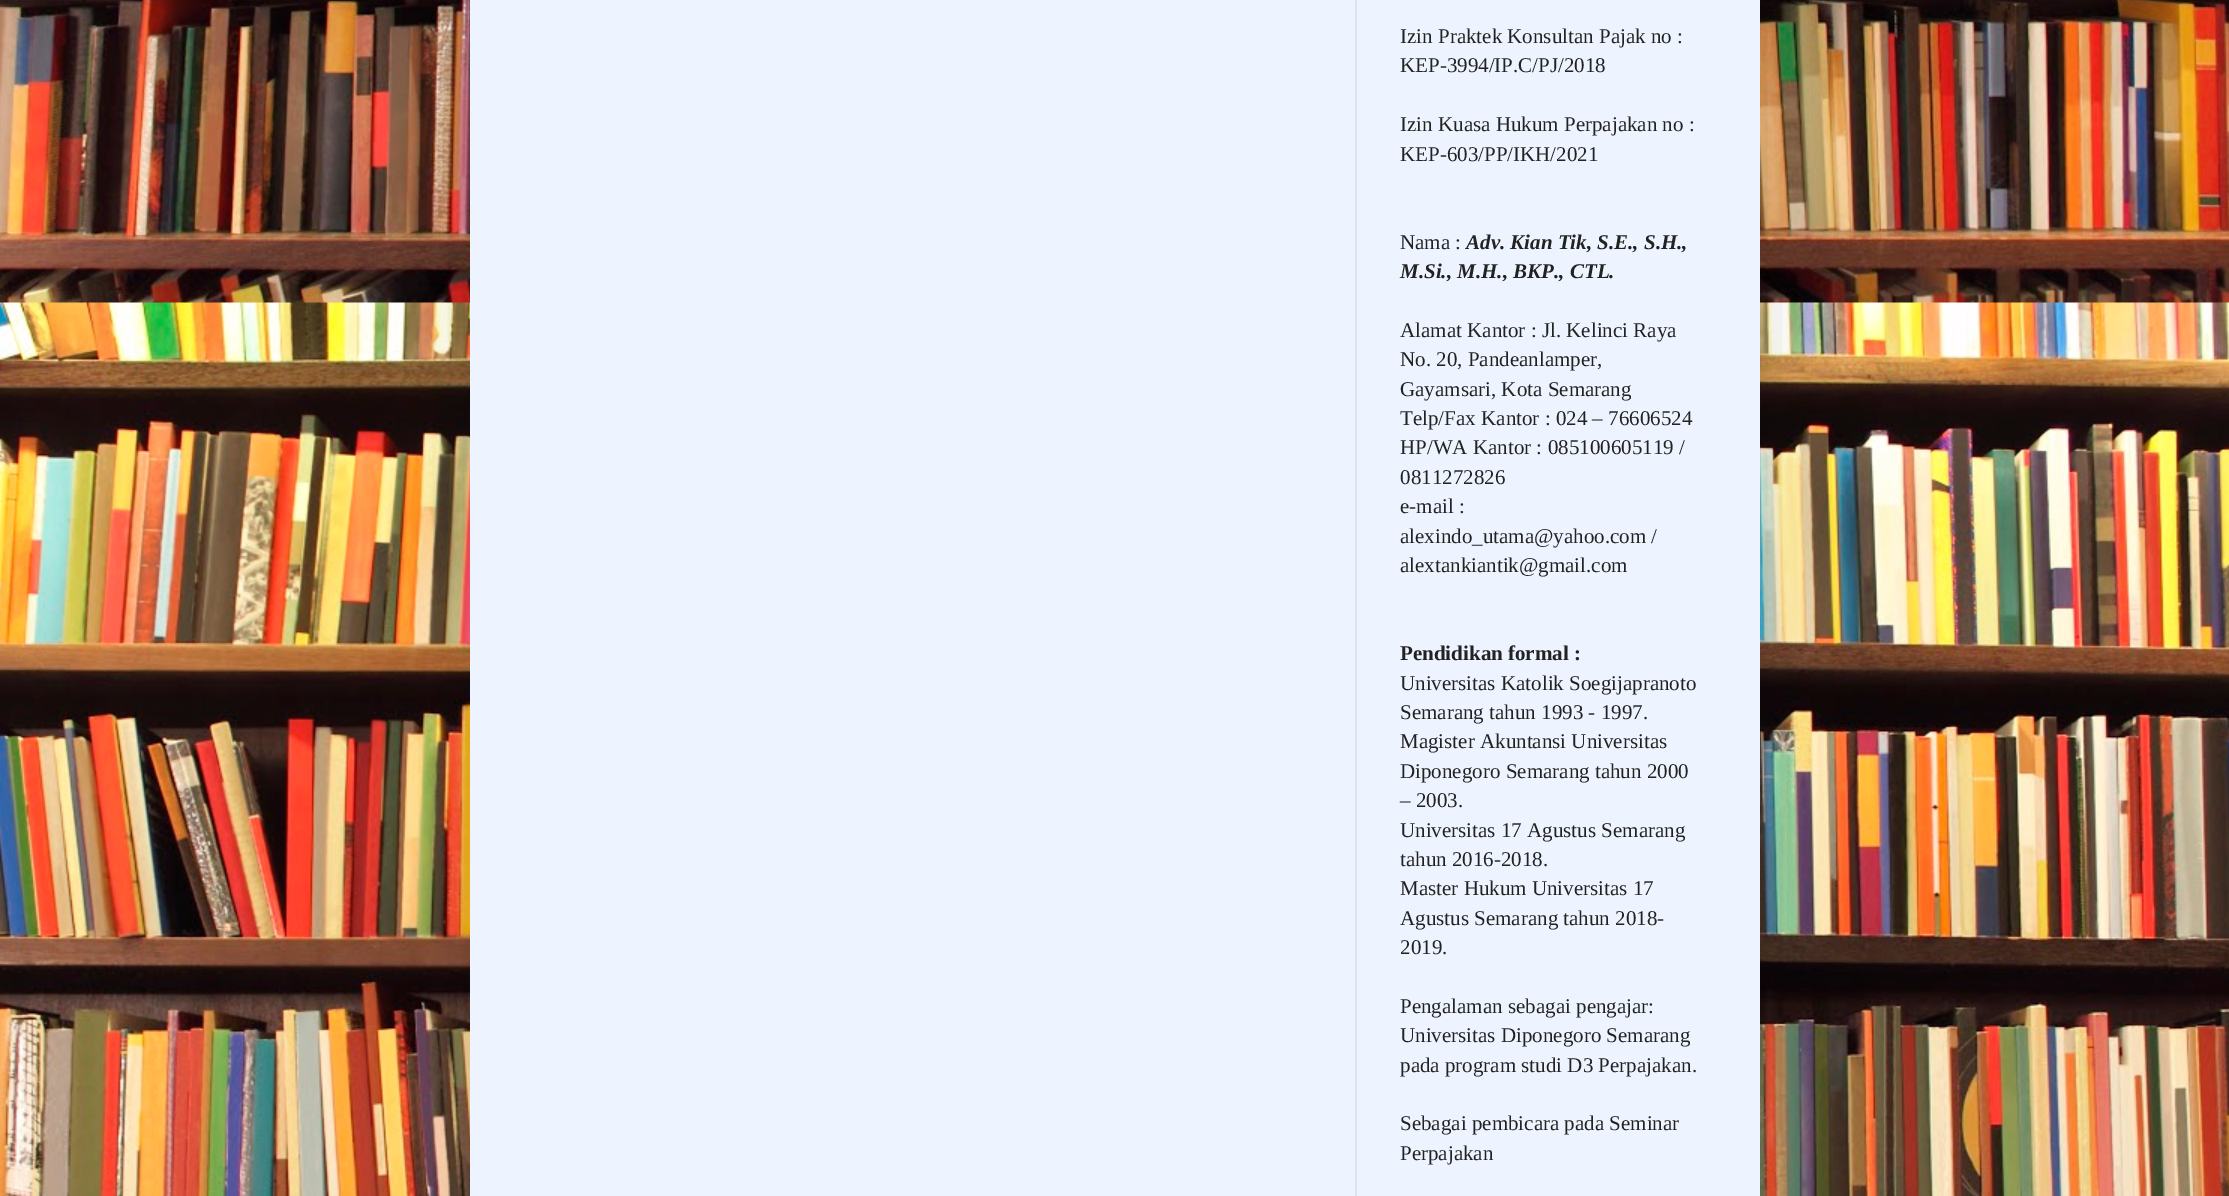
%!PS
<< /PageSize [2229 1196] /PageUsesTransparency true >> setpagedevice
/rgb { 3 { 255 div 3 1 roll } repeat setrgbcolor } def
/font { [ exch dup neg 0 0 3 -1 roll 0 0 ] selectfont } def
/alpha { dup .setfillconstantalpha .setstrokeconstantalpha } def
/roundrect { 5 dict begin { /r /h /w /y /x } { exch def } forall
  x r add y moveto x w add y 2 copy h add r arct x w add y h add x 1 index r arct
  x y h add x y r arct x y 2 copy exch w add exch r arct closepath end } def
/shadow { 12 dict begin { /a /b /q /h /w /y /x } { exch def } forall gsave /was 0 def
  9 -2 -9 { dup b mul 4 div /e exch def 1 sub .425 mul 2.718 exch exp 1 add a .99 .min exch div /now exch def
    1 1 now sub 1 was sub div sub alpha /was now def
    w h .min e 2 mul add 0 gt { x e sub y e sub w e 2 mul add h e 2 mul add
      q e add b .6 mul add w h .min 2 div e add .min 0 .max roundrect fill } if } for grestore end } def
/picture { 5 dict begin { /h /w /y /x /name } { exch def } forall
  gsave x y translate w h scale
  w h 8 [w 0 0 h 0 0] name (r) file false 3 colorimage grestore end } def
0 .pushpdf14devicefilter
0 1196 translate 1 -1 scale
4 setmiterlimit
255 255 255 rgb
0 0 2229 1196 rectfill
(img/1.rgb) 0 0 2229 1196 picture
0 0 0 rgb
470 -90 1290 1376 0 30 0.15 shadow
238 244 255 rgb
470 0 1290 1196 rectfill
221 230 238 rgb
1355 0 2 1196 rectfill
/LiberationSerif-Regular 21 font
34 34 34 rgb
[
  [(Izin Praktek Konsultan Pajak no :) 1400 43]
  [(KEP-3994/IP.C/PJ/2018) 1400 72]
  [(Izin Kuasa Hukum Perpajakan no :) 1400 131]
  [(KEP-603/PP/IKH/2021) 1400 161]
  [(Nama :) 1400 249]
] { aload pop moveto show } forall
/LiberationSerif-BoldItalic 21 font
1466 249 moveto (Adv. Kian Tik, S.E., S.H.,) show
1400 278 moveto (M.Si., M.H., BKP., CTL.) show
/LiberationSerif-Regular 21 font
[
  [(Alamat Kantor : Jl. Kelinci Raya) 1400 337]
  [(No. 20, Pandeanlamper,) 1400 366]
  [(Gayamsari, Kota Semarang) 1400 396]
  [(Telp/Fax Kantor : 024 – 76606524) 1400 425]
  [(HP/WA Kantor : 085100605119 /) 1400 454]
  [(0811272826) 1400 484]
  [(e-mail :) 1400 513]
  [(alexindo_utama@yahoo.com /) 1400 543]
  [(alextankiantik@gmail.com) 1400 572]
] { aload pop moveto show } forall
/LiberationSerif-Bold 21 font
1400 660 moveto (Pendidikan formal :) show
/LiberationSerif-Regular 21 font
[
  [(Universitas Katolik Soegijapranoto) 1400 690]
  [(Semarang tahun 1993 - 1997.) 1400 719]
  [(Magister Akuntansi Universitas) 1400 748]
  [(Diponegoro Semarang tahun 2000) 1400 778]
  [(– 2003.) 1400 807]
  [(Universitas 17 Agustus Semarang) 1400 837]
  [(tahun 2016-2018.) 1400 866]
  [(Master Hukum Universitas 17) 1400 895]
  [(Agustus Semarang tahun 2018-) 1400 925]
  [(2019.) 1400 954]
  [(Pengalaman sebagai pengajar:) 1400 1013]
  [(Universitas Diponegoro Semarang) 1400 1042]
  [(pada program studi D3 Perpajakan.) 1400 1072]
  [(Sebagai pembicara pada Seminar) 1400 1130]
  [(Perpajakan) 1400 1160]
] { aload pop moveto show } forall
.poppdf14devicefilter showpage
